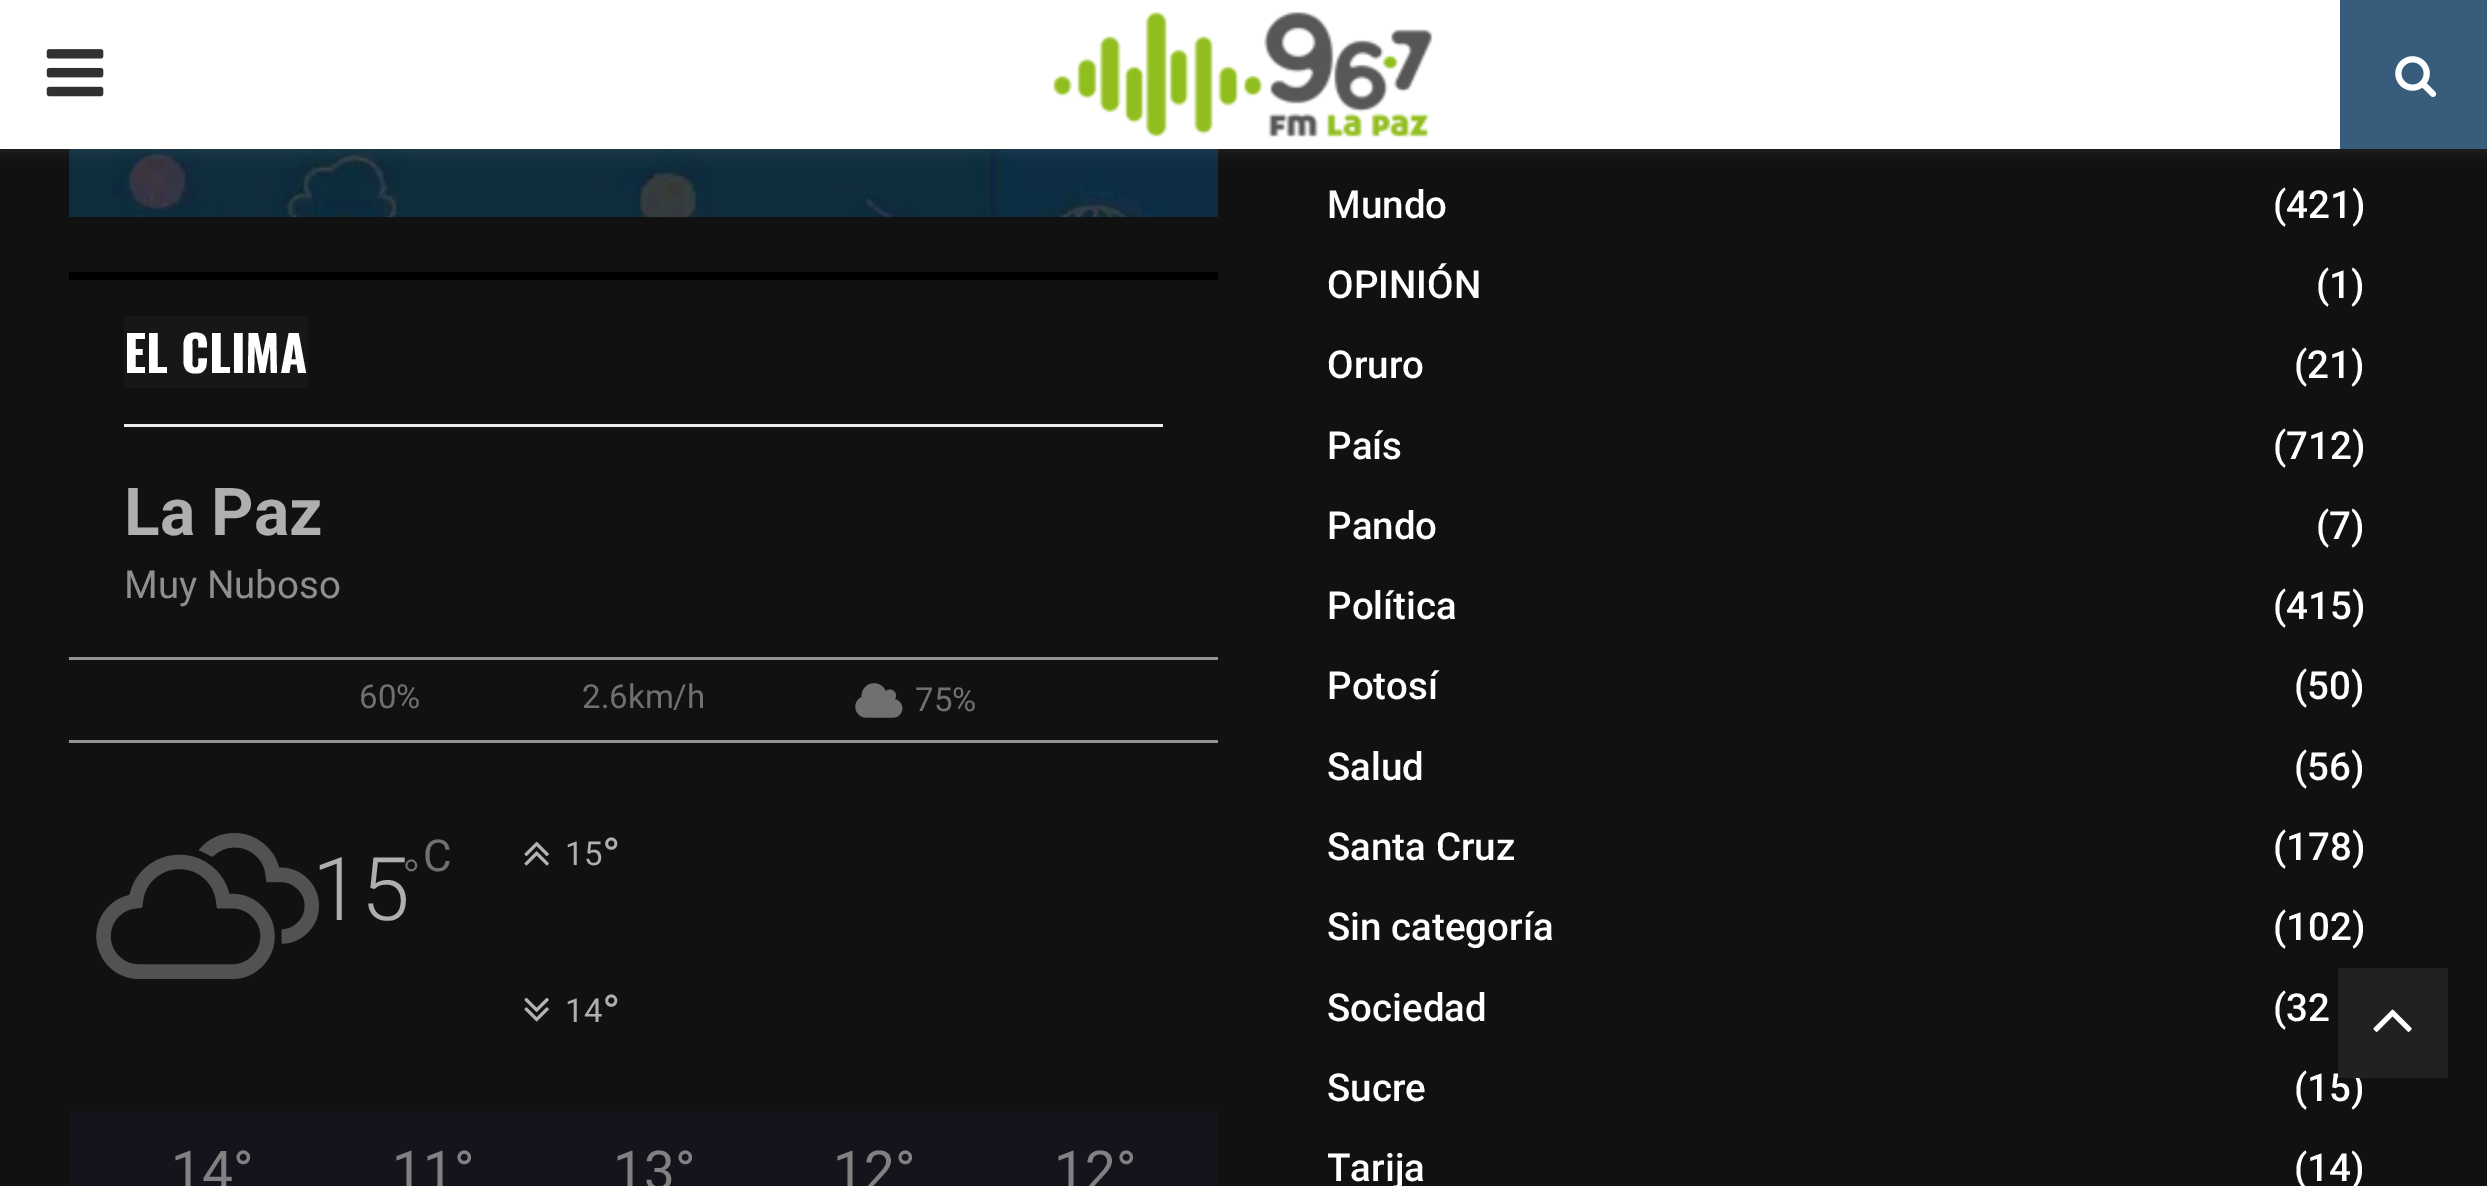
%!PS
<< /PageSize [2487 1186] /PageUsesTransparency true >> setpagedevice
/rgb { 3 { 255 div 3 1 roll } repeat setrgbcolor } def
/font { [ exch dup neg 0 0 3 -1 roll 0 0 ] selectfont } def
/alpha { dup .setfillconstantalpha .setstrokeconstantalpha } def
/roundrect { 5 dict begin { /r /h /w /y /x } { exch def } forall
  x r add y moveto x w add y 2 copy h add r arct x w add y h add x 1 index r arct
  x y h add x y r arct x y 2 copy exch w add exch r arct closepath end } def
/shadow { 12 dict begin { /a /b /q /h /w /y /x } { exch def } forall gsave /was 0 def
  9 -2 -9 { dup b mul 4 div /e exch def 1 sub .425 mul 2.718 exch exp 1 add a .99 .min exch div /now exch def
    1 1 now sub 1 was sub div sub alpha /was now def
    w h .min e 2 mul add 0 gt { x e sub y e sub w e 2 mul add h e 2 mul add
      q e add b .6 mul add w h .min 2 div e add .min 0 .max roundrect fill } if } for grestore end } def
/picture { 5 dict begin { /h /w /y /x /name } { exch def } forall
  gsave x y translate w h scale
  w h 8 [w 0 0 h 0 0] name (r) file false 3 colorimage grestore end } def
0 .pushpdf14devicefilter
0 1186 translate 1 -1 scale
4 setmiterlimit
17 17 17 rgb
0 0 2487 1186 rectfill
(img/4.rgb) 69 149 1149 68 picture
255 255 255 rgb
0 3 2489 148 0 7 0.08 shadow
0 0 2340 149 rectfill
(img/1.rgb) 46 49 58 48 picture
(img/2.rgb) 1053 11 380 127 picture
56 92 123 rgb
2340 0 147 149 rectfill
(img/3.rgb) 2395 56 42 41 picture
[
  [124 424 1039 3 236 236 236]
  [69 272 1149 8 0 0 0]
  [124 316 184 72 23 23 23]
  [69 657 1149 3 148 148 148]
  [69 740 1149 3 148 148 148]
] { aload pop rgb rectfill } forall
(img/5.rgb) 855 683 48 35 picture
(img/6.rgb) 96 833 223 147 picture
(img/7.rgb) 524 841 25 25 picture
(img/8.rgb) 524 997 25 25 picture
20 21 28 rgb
69 1111 1149 75 rectfill
0 0 0 rgb
2338 971 110 110 0 3 0.1 shadow
/Oswald-Bold 49.5 font
255 255 255 rgb
124 373 moveto (EL CLIMA) show
/Roboto-Bold 66 font
175 175 175 rgb
124 535 moveto (La Paz) show
/Roboto-Regular 38.5 font
143 143 143 rgb
124 598 moveto (Muy Nuboso) show
/Roboto-Regular 33 font
112 112 112 rgb
[
  [(60%) 359 708]
  [(2.6km/h) 582 708]
  [(75%) 915 711]
] { aload pop moveto show } forall
/Roboto-Light 88 font
175 175 175 rgb
312 920 moveto (15) show
/Roboto-Light 49.5 font
112 112 112 rgb
402 895 moveto (°) show
/Roboto-Regular 44 font
423 871 moveto (C) show
/Roboto-Regular 33 font
175 175 175 rgb
565 865 moveto (15) show
/Roboto-Regular 49.5 font
602 873 moveto (°) show
/Roboto-Regular 33 font
565 1022 moveto (14) show
/Roboto-Regular 49.5 font
602 1030 moveto (°) show
/Roboto-Regular 55 font
129 129 131 rgb
[
  [(14°) 171 1190]
  [(11°) 392 1190]
  [(13°) 613 1190]
  [(12°) 833 1190]
  [(12°) 1054 1190]
] { aload pop moveto show } forall
/Roboto-Medium 38.5 font
255 255 255 rgb
[
  [(Mundo) 1327 218]
  [(\(421\)) 2273 218]
  [(OPINIÓN) 1327 298]
  [(\(1\)) 2316 298]
  [(Oruro) 1327 378]
  [(\(21\)) 2294 378]
  [(País) 1327 459]
  [(\(712\)) 2273 459]
  [(Pando) 1327 539]
  [(\(7\)) 2316 539]
  [(Política) 1327 619]
  [(\(415\)) 2273 619]
  [(Potosí) 1327 699]
  [(\(50\)) 2294 699]
  [(Salud) 1327 780]
  [(\(56\)) 2294 780]
  [(Santa Cruz) 1327 860]
  [(\(178\)) 2273 860]
  [(Sin categoría) 1327 940]
  [(\(102\)) 2273 940]
  [(Sociedad) 1327 1021]
  [(\(32) 2273 1021]
  [(Sucre) 1327 1101]
  [(\(15\)) 2294 1101]
] { aload pop moveto show } forall
gsave
1328 1141 1037 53 rectclip
1327 1181 moveto (Tarija) show
grestore
2294 1181 moveto (\(14\)) show
33 33 33 rgb
2338 968 110 110 rectfill
(img/9.rgb) 2373 1009 39 23 picture
.poppdf14devicefilter showpage
